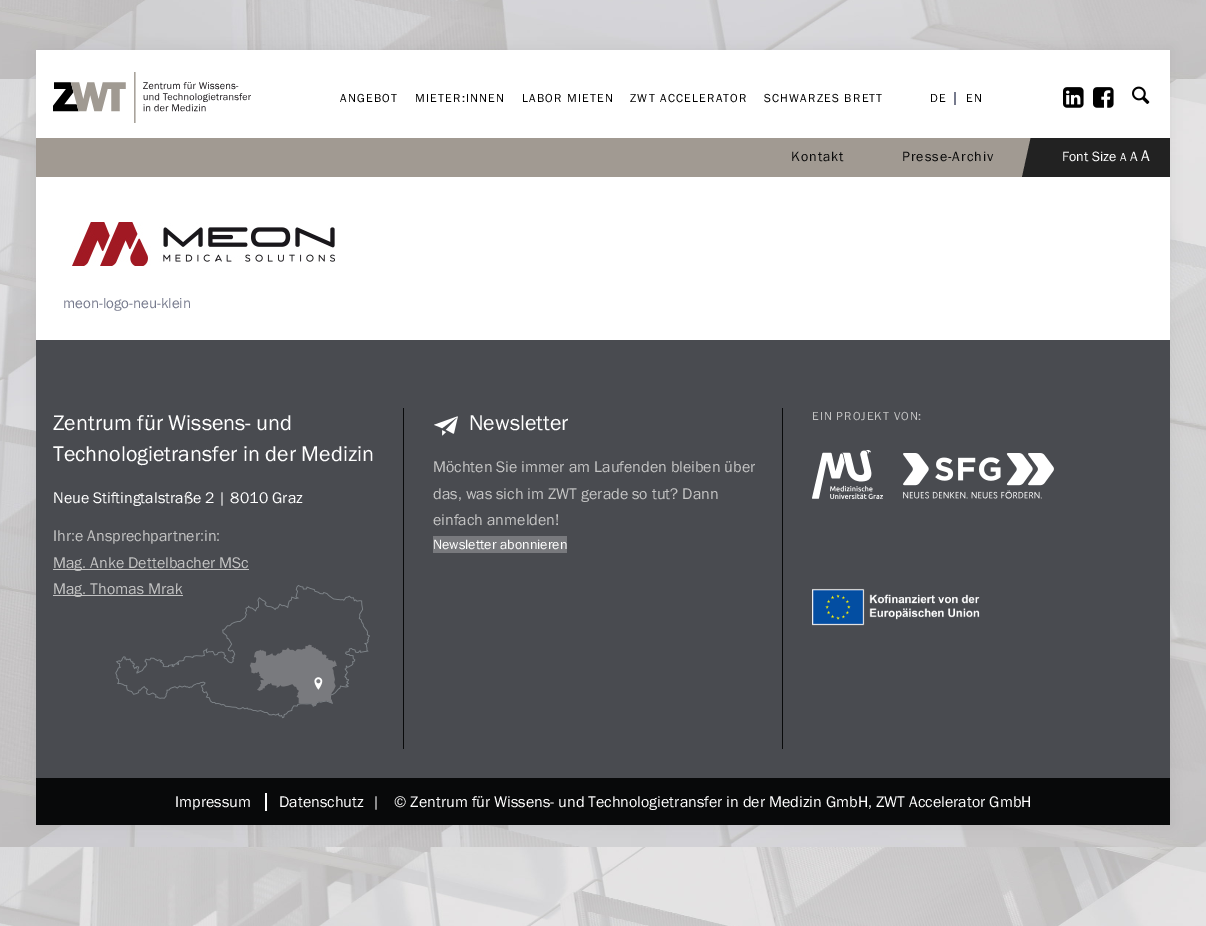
%!PS
<< /PageSize [1206 926] /PageUsesTransparency true >> setpagedevice
/rgb { 3 { 255 div 3 1 roll } repeat setrgbcolor } def
/font { [ exch dup neg 0 0 3 -1 roll 0 0 ] selectfont } def
/alpha { dup .setfillconstantalpha .setstrokeconstantalpha } def
/roundrect { 5 dict begin { /r /h /w /y /x } { exch def } forall
  x r add y moveto x w add y 2 copy h add r arct x w add y h add x 1 index r arct
  x y h add x y r arct x y 2 copy exch w add exch r arct closepath end } def
/shadow { 12 dict begin { /a /b /q /h /w /y /x } { exch def } forall gsave /was 0 def
  9 -2 -9 { dup b mul 4 div /e exch def 1 sub .425 mul 2.718 exch exp 1 add a .99 .min exch div /now exch def
    1 1 now sub 1 was sub div sub alpha /was now def
    w h .min e 2 mul add 0 gt { x e sub y e sub w e 2 mul add h e 2 mul add
      q e add b .6 mul add w h .min 2 div e add .min 0 .max roundrect fill } if } for grestore end } def
/picture { 5 dict begin { /h /w /y /x /name } { exch def } forall
  gsave x y translate w h scale
  w h 8 [w 0 0 h 0 0] name (r) file false 3 colorimage grestore end } def
0 .pushpdf14devicefilter
0 926 translate 1 -1 scale
4 setmiterlimit
255 255 255 rgb
0 0 1206 926 rectfill
(img/1.rgb) 0 0 1206 926 picture
0 0 0 rgb
36 50 1134 775 0 7.5 0.05 shadow
255 255 255 rgb
36 50 1134 290 rectfill
34 34 34 rgb
1022 138 148 39 rectfill
161 154 146 rgb
1022 126 moveto 1033 126 lineto 1022 176 lineto closepath fill
255 255 255 rgb
1022 126 11 12 rectfill
(img/2.rgb) 53 72 198 51 picture
118 122 141 rgb
954 92 2 13 rectfill
(img/3.rgb) 1063 87 21 21 picture
(img/4.rgb) 1093 87 21 21 picture
(img/5.rgb) 1132 86 18 18 picture
161 154 146 rgb
36 138 986 39 rectfill
(img/6.rgb) 72 222 263 44 picture
[
  [36 340 1134 438 73 75 80]
  [403 408 1 341 8 9 10]
  [53 569 196 1 195 195 195]
  [53 595 130 1 195 195 195]
] { aload pop rgb rectfill } forall
(img/8.rgb) 434 416 24 20 picture
8 9 10 rgb
782 408 1 341 rectfill
120 121 125 rgb
433 536 134 17 rectfill
(img/9.rgb) 812 450 71 49 picture
(img/10.rgb) 903 453 151 46 picture
(img/11.rgb) 812 588 168 38 picture
8 9 10 rgb
36 778 1134 47 rectfill
255 255 255 rgb
265 793 2 18 rectfill
/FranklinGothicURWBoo-Regular 12 font
0 0 0 rgb
340 102 moveto 1.25 0 (ANGEBOT) ashow
415 102 moveto 1.25 0 (MIETER:INNEN) ashow
522 102 moveto 1.25 0 (LABOR MIETEN) ashow
630 102 moveto 1.25 0 (ZWT ACCELERATOR) ashow
764 102 moveto 1.25 0 (SCHWARZES BRETT) ashow
930 102 moveto 1.25 0 (DE) ashow
966 102 moveto 1.25 0 (EN) ashow
/FranklinGothicURWBoo-Regular 14 font
10 10 10 rgb
791 161 moveto 1 0 (Kontakt) ashow
902 161 moveto 1 0 (Presse-Archiv) ashow
255 255 255 rgb
1062 161 moveto (Font Size) show
/FranklinGothicURWBoo-Regular 12 font
1120 161 moveto (A) show
/FranklinGothicURWBoo-Regular 14 font
1130 161 moveto (A) show
/FranklinGothicURWBoo-Regular 16 font
1141 161 moveto (A) show
/FranklinGothicURWBoo-Regular 15 font
118 122 141 rgb
63 308 moveto (meon-logo-neu-klein) show
/FranklinGothicURWBoo-Regular 22 font
255 255 255 rgb
53 430 moveto (Zentrum für Wissens- und) show
53 461 moveto (Technologietransfer in der Medizin) show
/FranklinGothicURWBoo-Regular 16 font
53 503 moveto (Neue Stiftingtalstraße 2 | 8010 Graz) show
195 195 195 rgb
[
  [(Ihr:e Ansprechpartner:in:) 53 541]
  [(Mag. Anke Dettelbacher MSc) 53 568]
  [(Mag. Thomas Mrak) 53 594]
] { aload pop moveto show } forall
(img/7.rgb) 115 585 255 134 picture
/FranklinGothicURWBoo-Regular 22 font
255 255 255 rgb
469 430 moveto (Newsletter) show
/FranklinGothicURWBoo-Regular 16 font
195 195 195 rgb
[
  [(Möchten Sie immer am Laufenden bleiben über) 433 472]
  [(das, was sich im ZWT gerade so tut? Dann) 433 499]
  [(einfach anmelden!) 433 525]
] { aload pop moveto show } forall
/FranklinGothicURWBoo-Regular 14 font
255 255 255 rgb
433 549 moveto (Newsletter abonnieren) show
/FranklinGothicURWBoo-Regular 12 font
195 195 195 rgb
812 420 moveto 1 0 (EIN PROJEKT VON:) ashow
/FranklinGothicURWBoo-Regular 16 font
255 255 255 rgb
[
  [(Impressum) 175 807]
  [(Datenschutz  |) 279 807]
  [(© Zentrum für Wissens- und Technologietransfer in der Medizin GmbH, ZWT Accelerator GmbH) 394 807]
] { aload pop moveto show } forall
.poppdf14devicefilter showpage
